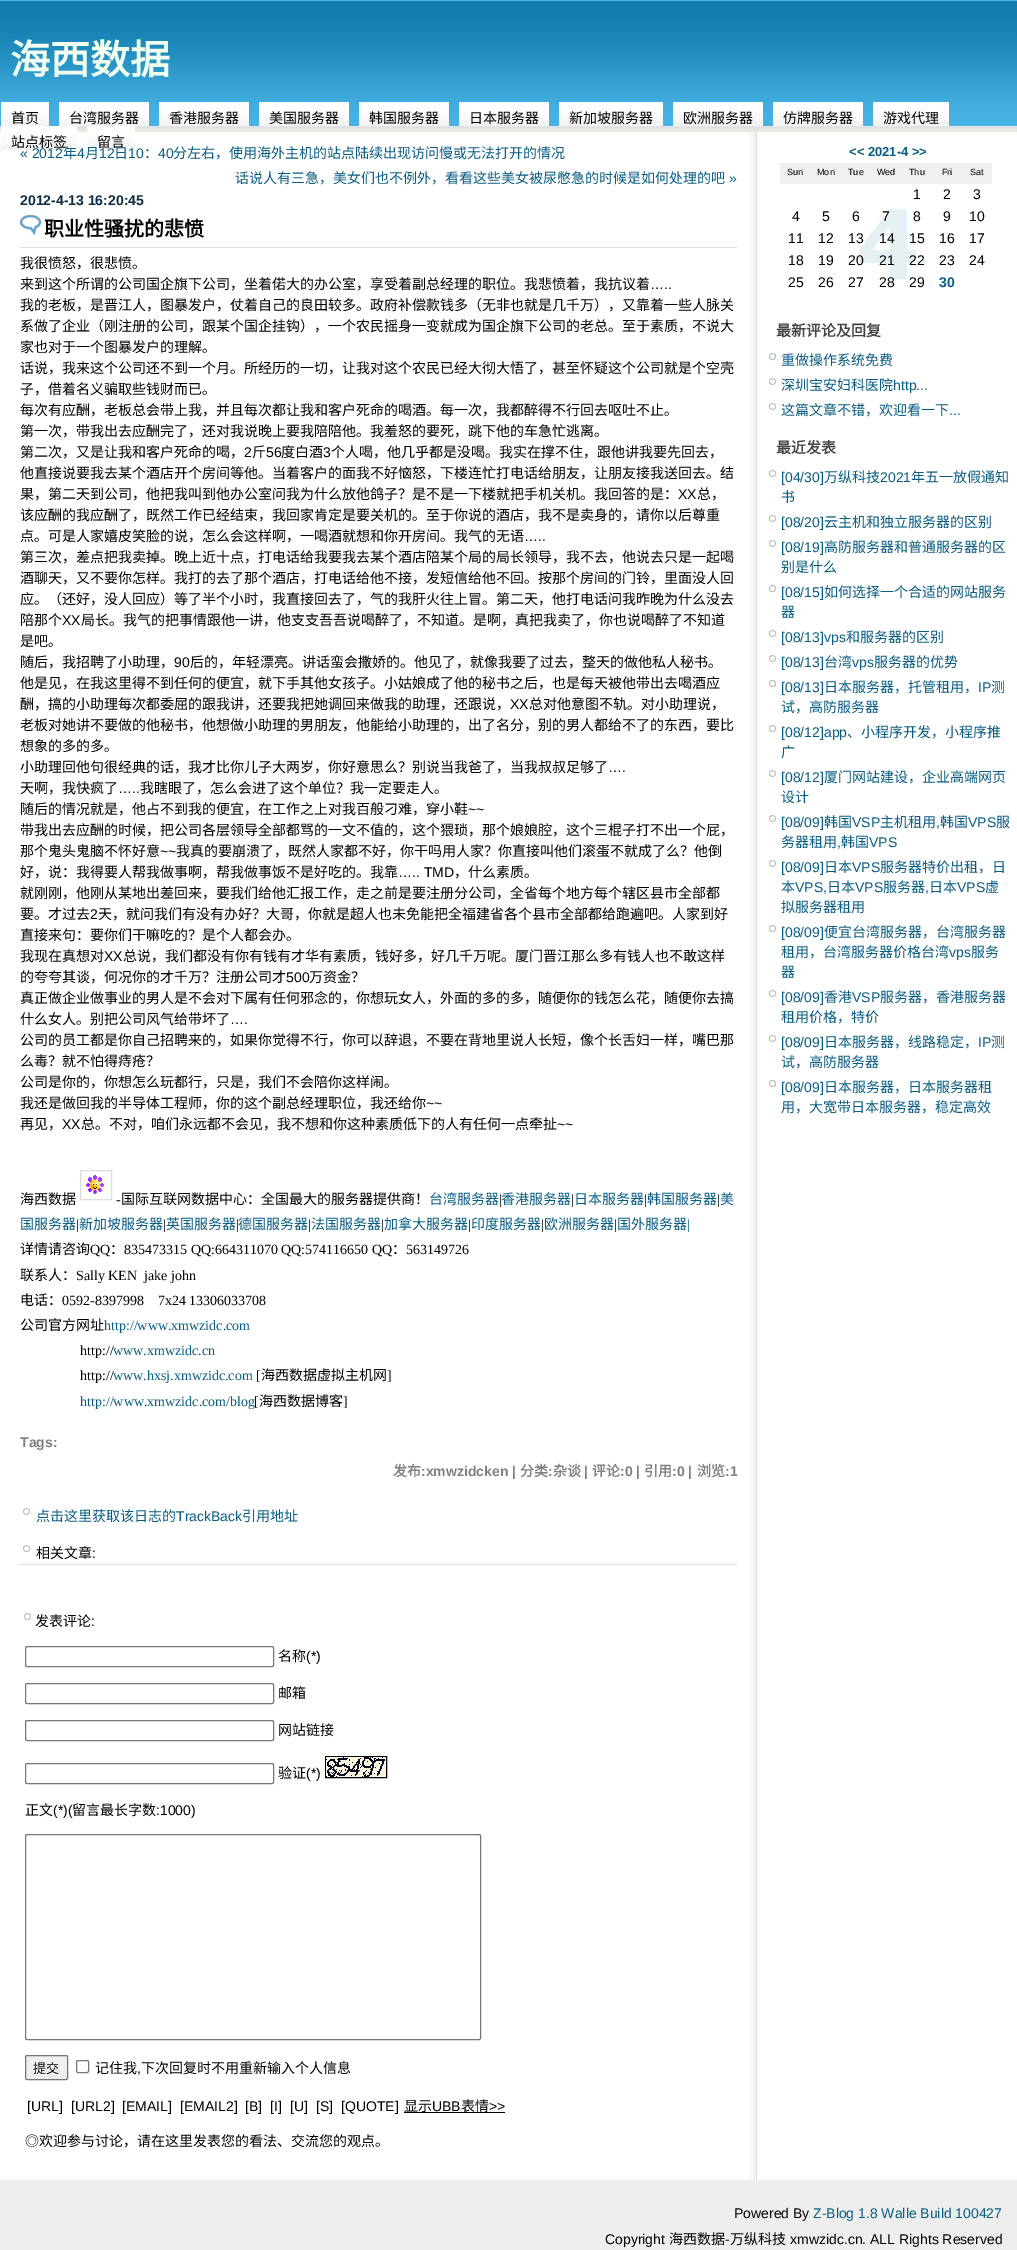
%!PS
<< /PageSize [1017 2250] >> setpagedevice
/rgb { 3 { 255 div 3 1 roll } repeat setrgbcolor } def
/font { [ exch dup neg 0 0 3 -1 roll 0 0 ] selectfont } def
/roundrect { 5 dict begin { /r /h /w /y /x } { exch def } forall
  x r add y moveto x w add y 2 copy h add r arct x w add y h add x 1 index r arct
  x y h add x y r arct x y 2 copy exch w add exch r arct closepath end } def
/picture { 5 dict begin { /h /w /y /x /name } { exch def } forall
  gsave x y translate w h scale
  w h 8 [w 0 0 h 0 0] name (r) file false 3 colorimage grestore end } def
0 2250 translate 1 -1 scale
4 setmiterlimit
255 255 255 rgb
0 0 1017 2250 rectfill
(img/1.rgb) 749 132 8 2048 picture
(img/2.rgb) 0 0 1017 102 picture
(img/3.rgb) 0 102 1017 30 picture
1 102 48 9 rectfill
(img/4.rgb) 1 111 48 15 picture
59 102 90 9 rectfill
(img/5.rgb) 59 111 90 15 picture
159 102 90 9 rectfill
(img/5.rgb) 159 111 90 15 picture
259 102 90 9 rectfill
(img/5.rgb) 259 111 90 15 picture
359 102 90 9 rectfill
(img/5.rgb) 359 111 90 15 picture
459 102 90 9 rectfill
(img/5.rgb) 459 111 90 15 picture
559 102 104 9 rectfill
(img/6.rgb) 559 111 104 15 picture
673 102 90 9 rectfill
(img/5.rgb) 673 111 90 15 picture
773 102 90 9 rectfill
(img/5.rgb) 773 111 90 15 picture
873 102 76 9 rectfill
(img/7.rgb) 873 111 76 15 picture
1 126 76 6 rectfill
(img/7.rgb) 1 135 76 15 picture
87 126 48 6 rectfill
(img/4.rgb) 87 135 48 15 picture
(img/8.rgb) 20 215 21 20 picture
224 224 224 rgb
20 247 717 1 rectfill
221 221 221 rgb
80.5 1170.5 31 29 rectstroke
(img/9.rgb) 86 1175 18 19 picture
(img/10.rgb) 23 1508 7 7 picture
(img/10.rgb) 23 1545 7 7 picture
224 224 224 rgb
20 1564 717 1 rectfill
(img/10.rgb) 24 1613 7 7 picture
118 118 118 rgb
25.5 1646.5 248 20 1.5 roundrect stroke
25.5 1683.5 248 20 1.5 roundrect stroke
25.5 1720.5 248 20 1.5 roundrect stroke
0 0 0 rgb
325.5 1756.5 61 21 rectstroke
118 118 118 rgb
25.5 1763.5 248 20 1.5 roundrect stroke
(img/11.rgb) 326 1757 60 20 picture
25.5 1834.5 455 205 1.5 roundrect stroke
239 239 239 rgb
25.5 2055.5 42 24 1.5 roundrect gsave fill grestore
118 118 118 rgb
stroke
76.5 2060.5 12 12 1.5 roundrect stroke
0 0 0 rgb
404 2112 101 1 rectfill
(img/12.rgb) 859 209 58 71 picture
240 240 240 rgb
780 163 212 21 rectfill
(img/10.rgb) 769 353 7 7 picture
(img/10.rgb) 769 378 7 7 picture
(img/10.rgb) 769 403 7 7 picture
(img/10.rgb) 769 470 7 7 picture
(img/10.rgb) 769 515 7 7 picture
(img/10.rgb) 769 540 7 7 picture
(img/10.rgb) 769 585 7 7 picture
(img/10.rgb) 769 630 7 7 picture
(img/10.rgb) 769 655 7 7 picture
(img/10.rgb) 769 680 7 7 picture
(img/10.rgb) 769 725 7 7 picture
(img/10.rgb) 769 770 7 7 picture
(img/10.rgb) 769 815 7 7 picture
(img/10.rgb) 769 860 7 7 picture
(img/10.rgb) 769 925 7 7 picture
(img/10.rgb) 769 990 7 7 picture
(img/10.rgb) 769 1035 7 7 picture
(img/10.rgb) 769 1080 7 7 picture
238 238 238 rgb
0 2180 1017 70 rectfill
/NotoSansCJKSC-Bold 40 font
240 255 240 rgb
10 74 moveto (海西数据) show
/NotoSansCJKSC-Regular 14 font
0 0 0 rgb
[
  [(首页) 11 123]
  [(台湾服务器) 69 123]
  [(香港服务器) 169 123]
  [(美国服务器) 269 123]
  [(韩国服务器) 369 123]
  [(日本服务器) 469 123]
  [(新加坡服务器) 569 123]
  [(欧洲服务器) 683 123]
  [(仿牌服务器) 783 123]
  [(游戏代理) 883 123]
  [(站点标签) 11 147]
  [(留言) 97 147]
] { aload pop moveto show } forall
/LiberationSans-Regular 14 font
9 92 131 rgb
20 158 moveto (« 2012) show
/NotoSansCJKSC-Regular 14 font
63 158 moveto (年) show
/LiberationSans-Regular 14 font
77 158 moveto (4) show
/NotoSansCJKSC-Regular 14 font
85 158 moveto (月) show
/LiberationSans-Regular 14 font
99 158 moveto (12) show
/NotoSansCJKSC-Regular 14 font
114 158 moveto (日) show
/LiberationSans-Regular 14 font
128 158 moveto (10) show
/NotoSansCJKSC-Regular 14 font
144 158 moveto (：) show
/LiberationSans-Regular 14 font
158 158 moveto (40) show
/NotoSansCJKSC-Regular 14 font
173 158 moveto (分左右，使用海外主机的站点陆续出现访问慢或无法打开的情况) show
235 183 moveto (话说人有三急，美女们也不例外，看看这些美女被尿憋急的时候是如何处理的吧) show
/LiberationSans-Regular 14 font
729 183 moveto (») show
/LiberationSans-Bold 14 font
14 46 74 rgb
20 205 moveto (2012-4-13 16:20:45) show
/NotoSansCJKSC-Bold 20 font
0 0 0 rgb
44 236 moveto (职业性骚扰的悲愤) show
/NotoSansCJKSC-Regular 14 font
20 268 moveto (我很愤怒，很悲愤。) show
20 289 moveto (来到这个所谓的公司国企旗下公司，坐着偌大的办公室，享受着副总经理的职位。我悲愤着，我抗议着) show
/LiberationSans-Regular 14 font
650 289 moveto (…..) show
/NotoSansCJKSC-Regular 14 font
[
  [(我的老板，是晋江人，图暴发户，仗着自己的良田较多。政府补偿款钱多（无非也就是几千万），又靠着一些人脉关) 20 310]
  [(系做了企业（刚注册的公司，跟某个国企挂钩），一个农民摇身一变就成为国企旗下公司的老总。至于素质，不说大) 20 331]
  [(家也对于一个图暴发户的理解。) 20 352]
  [(话说，我来这个公司还不到一个月。所经历的一切，让我对这个农民已经大彻大悟了，甚至怀疑这个公司就是个空壳) 20 373]
  [(子，借着名义骗取些钱财而已。) 20 394]
  [(每次有应酬，老板总会带上我，并且每次都让我和客户死命的喝酒。每一次，我都醉得不行回去呕吐不止。) 20 415]
  [(第一次，带我出去应酬完了，还对我说晚上要我陪陪他。我羞怒的要死，跳下他的车急忙逃离。) 20 436]
  [(第二次，又是让我和客户死命的喝，) 20 457]
] { aload pop moveto show } forall
/LiberationSans-Regular 14 font
244 457 moveto (2) show
/NotoSansCJKSC-Regular 14 font
252 457 moveto (斤) show
/LiberationSans-Regular 14 font
266 457 moveto (56) show
/NotoSansCJKSC-Regular 14 font
281 457 moveto (度白酒) show
/LiberationSans-Regular 14 font
323 457 moveto (3) show
/NotoSansCJKSC-Regular 14 font
[
  [(个人喝，他几乎都是没喝。我实在撑不住，跟他讲我要先回去，) 331 457]
  [(他直接说要我去某个酒店开个房间等他。当着客户的面我不好恼怒，下楼连忙打电话给朋友，让朋友接我送回去。结) 20 478]
  [(果，第二天到公司，他把我叫到他办公室问我为什么放他鸽子？是不是一下楼就把手机关机。我回答的是：) 20 499]
] { aload pop moveto show } forall
/LiberationSans-Regular 14 font
678 499 moveto (XX) show
/NotoSansCJKSC-Regular 14 font
[
  [(总，) 697 499]
  [(该应酬的我应酬了，既然工作已经结束，我回家肯定是要关机的。至于你说的酒店，我不是卖身的，请你以后尊重) 20 520]
  [(点。可是人家嬉皮笑脸的说，怎么会这样啊，一喝酒就想和你开房间。我气的无语) 20 541]
] { aload pop moveto show } forall
/LiberationSans-Regular 14 font
524 541 moveto (…..) show
/NotoSansCJKSC-Regular 14 font
[
  [(第三次，差点把我卖掉。晚上近十点，打电话给我要我去某个酒店陪某个局的局长领导，我不去，他说去只是一起喝) 20 562]
  [(酒聊天，又不要你怎样。我打的去了那个酒店，打电话给他不接，发短信给他不回。按那个房间的门铃，里面没人回) 20 583]
  [(应。（还好，没人回应）等了半个小时，我直接回去了，气的我肝火往上冒。第二天，他打电话问我昨晚为什么没去) 20 604]
  [(陪那个) 20 625]
] { aload pop moveto show } forall
/LiberationSans-Regular 14 font
62 625 moveto (XX) show
/NotoSansCJKSC-Regular 14 font
[
  [(局长。我气的把事情跟他一讲，他支支吾吾说喝醉了，不知道。是啊，真把我卖了，你也说喝醉了不知道) 81 625]
  [(是吧。) 20 646]
  [(随后，我招聘了小助理，) 20 667]
] { aload pop moveto show } forall
/LiberationSans-Regular 14 font
174 667 moveto (90) show
/NotoSansCJKSC-Regular 14 font
[
  [(后的，年轻漂亮。讲话蛮会撒娇的。他见了，就像我要了过去，整天的做他私人秘书。) 190 667]
  [(他是见，在我这里得不到任何的便宜，就下手其他女孩子。小姑娘成了他的秘书之后，也是每天被他带出去喝酒应) 20 688]
  [(酬，搞的小助理每次都委屈的跟我讲，还要我把她调回来做我的助理，还跟说，) 20 709]
] { aload pop moveto show } forall
/LiberationSans-Regular 14 font
510 709 moveto (XX) show
/NotoSansCJKSC-Regular 14 font
[
  [(总对他意图不轨。对小助理说，) 529 709]
  [(老板对她讲不要做的他秘书，他想做小助理的男朋友，他能给小助理的，出了名分，别的男人都给不了的东西，要比) 20 730]
  [(想象的多的多。) 20 751]
  [(小助理回他句很经典的话，我才比你儿子大两岁，你好意思么？别说当我爸了，当我叔叔足够了) 20 772]
] { aload pop moveto show } forall
/LiberationSans-Regular 14 font
608 772 moveto (….) show
/NotoSansCJKSC-Regular 14 font
20 793 moveto (天啊，我快疯了) show
/LiberationSans-Regular 14 font
118 793 moveto (…..) show
/NotoSansCJKSC-Regular 14 font
140 793 moveto (我瞎眼了，怎么会进了这个单位？我一定要走人。) show
20 814 moveto (随后的情况就是，他占不到我的便宜，在工作之上对我百般刁难，穿小鞋) show
/LiberationSans-Regular 14 font
468 814 moveto (~~) show
/NotoSansCJKSC-Regular 14 font
20 835 moveto (带我出去应酬的时候，把公司各层领导全部都骂的一文不值的，这个猥琐，那个娘娘腔，这个三棍子打不出一个屁，) show
20 856 moveto (那个鬼头鬼脑不怀好意) show
/LiberationSans-Regular 14 font
160 856 moveto (~~) show
/NotoSansCJKSC-Regular 14 font
176 856 moveto (我真的要崩溃了，既然人家都不好，你干吗用人家？你直接叫他们滚蛋不就成了么？他倒) show
20 877 moveto (好，说：我得要人帮我做事啊，帮我做事饭不是好吃的。我靠) show
/LiberationSans-Regular 14 font
398 877 moveto (….. TMD) show
/NotoSansCJKSC-Regular 14 font
[
  [(，什么素质。) 454 877]
  [(就刚刚，他刚从某地出差回来，要我们给他汇报工作，走之前是要注册分公司，全省每个地方每个辖区县市全部都) 20 898]
  [(要。才过去) 20 919]
] { aload pop moveto show } forall
/LiberationSans-Regular 14 font
90 919 moveto (2) show
/NotoSansCJKSC-Regular 14 font
[
  [(天，就问我们有没有办好？大哥，你就是超人也未免能把全福建省各个县市全部都给跑遍吧。人家到好) 98 919]
  [(直接来句：要你们干嘛吃的？是个人都会办。) 20 940]
  [(我现在真想对) 20 961]
] { aload pop moveto show } forall
/LiberationSans-Regular 14 font
104 961 moveto (XX) show
/NotoSansCJKSC-Regular 14 font
123 961 moveto (总说，我们都没有你有钱有才华有素质，钱好多，好几千万呢。厦门晋江那么多有钱人也不敢这样) show
20 982 moveto (的夸夸其谈，何况你的才千万？注册公司才) show
/LiberationSans-Regular 14 font
286 982 moveto (500) show
/NotoSansCJKSC-Regular 14 font
[
  [(万资金？) 309 982]
  [(真正做企业做事业的男人是不会对下属有任何邪念的，你想玩女人，外面的多的多，随便你的钱怎么花，随便你去搞) 20 1003]
  [(什么女人。别把公司风气给带坏了) 20 1024]
] { aload pop moveto show } forall
/LiberationSans-Regular 14 font
230 1024 moveto (….) show
/NotoSansCJKSC-Regular 14 font
[
  [(公司的员工都是你自己招聘来的，如果你觉得不行，你可以辞退，不要在背地里说人长短，像个长舌妇一样，嘴巴那) 20 1045]
  [(么毒？就不怕得痔疮？) 20 1066]
  [(公司是你的，你想怎么玩都行，只是，我们不会陪你这样闹。) 20 1087]
  [(我还是做回我的半导体工程师，你的这个副总经理职位，我还给你) 20 1108]
] { aload pop moveto show } forall
/LiberationSans-Regular 14 font
426 1108 moveto (~~) show
/NotoSansCJKSC-Regular 14 font
20 1129 moveto (再见，) show
/LiberationSans-Regular 14 font
62 1129 moveto (XX) show
/NotoSansCJKSC-Regular 14 font
81 1129 moveto (总。不对，咱们永远都不会见，我不想和你这种素质低下的人有任何一点牵扯) show
/LiberationSans-Regular 14 font
557 1129 moveto (~~) show
/NotoSansCJKSC-Regular 14 font
20 1204 moveto (海西数据) show
/LiberationSerif-Regular 14 font
116 1204 moveto (-) show
/NotoSansCJKSC-Regular 14 font
121 1204 moveto (国际互联网数据中心：全国最大的服务器提供商！) show
9 92 131 rgb
429 1204 moveto (台湾服务器) show
/LiberationSerif-Regular 14 font
0 0 0 rgb
499 1204 moveto (|) show
/NotoSansCJKSC-Regular 14 font
9 92 131 rgb
501 1204 moveto (香港服务器) show
/LiberationSerif-Regular 14 font
0 0 0 rgb
571 1204 moveto (|) show
/NotoSansCJKSC-Regular 14 font
9 92 131 rgb
574 1204 moveto (日本服务器) show
/LiberationSerif-Regular 14 font
0 0 0 rgb
644 1204 moveto (|) show
/NotoSansCJKSC-Regular 14 font
9 92 131 rgb
647 1204 moveto (韩国服务器) show
/LiberationSerif-Regular 14 font
0 0 0 rgb
717 1204 moveto (|) show
/NotoSansCJKSC-Regular 14 font
9 92 131 rgb
720 1204 moveto (美) show
20 1229 moveto (国服务器) show
/LiberationSerif-Regular 14 font
0 0 0 rgb
76 1229 moveto (|) show
/NotoSansCJKSC-Regular 14 font
9 92 131 rgb
79 1229 moveto (新加坡服务器) show
/LiberationSerif-Regular 14 font
0 0 0 rgb
163 1229 moveto (|) show
/NotoSansCJKSC-Regular 14 font
9 92 131 rgb
166 1229 moveto (英国服务器) show
/LiberationSerif-Regular 14 font
0 0 0 rgb
236 1229 moveto (|) show
/NotoSansCJKSC-Regular 14 font
9 92 131 rgb
238 1229 moveto (德国服务器) show
/LiberationSerif-Regular 14 font
0 0 0 rgb
308 1229 moveto (|) show
/NotoSansCJKSC-Regular 14 font
9 92 131 rgb
311 1229 moveto (法国服务器) show
/LiberationSerif-Regular 14 font
0 0 0 rgb
381 1229 moveto (|) show
/NotoSansCJKSC-Regular 14 font
9 92 131 rgb
384 1229 moveto (加拿大服务器) show
/LiberationSerif-Regular 14 font
0 0 0 rgb
468 1229 moveto (|) show
/NotoSansCJKSC-Regular 14 font
9 92 131 rgb
471 1229 moveto (印度服务器) show
/LiberationSerif-Regular 14 font
0 0 0 rgb
541 1229 moveto (|) show
/NotoSansCJKSC-Regular 14 font
9 92 131 rgb
544 1229 moveto (欧洲服务器) show
/LiberationSerif-Regular 14 font
0 0 0 rgb
614 1229 moveto (|) show
/NotoSansCJKSC-Regular 14 font
9 92 131 rgb
617 1229 moveto (国外服务器) show
/LiberationSerif-Regular 14 font
687 1229 moveto (|) show
/NotoSansCJKSC-Regular 14 font
0 0 0 rgb
20 1254 moveto (详情请咨询) show
/LiberationSerif-Regular 14 font
90 1254 moveto (QQ) show
/NotoSansCJKSC-Regular 14 font
110 1254 moveto (：) show
/LiberationSerif-Regular 14 font
124 1254 moveto (835473315 QQ:664311070 QQ:574116650 QQ) show
/NotoSansCJKSC-Regular 14 font
392 1254 moveto (：) show
/LiberationSerif-Regular 14 font
406 1254 moveto (563149726) show
/NotoSansCJKSC-Regular 14 font
20 1280 moveto (联系人：) show
/LiberationSerif-Regular 14 font
76 1280 moveto (Sally KEN  jake john) show
/NotoSansCJKSC-Regular 14 font
20 1305 moveto (电话：) show
/LiberationSerif-Regular 14 font
62 1305 moveto (0592-8397998    7x24 13306033708) show
/NotoSansCJKSC-Regular 14 font
20 1330 moveto (公司官方网址) show
/LiberationSerif-Regular 14 font
9 92 131 rgb
104 1330 moveto (http://www.xmwzidc.com) show
0 0 0 rgb
80 1355 moveto (http://) show
9 92 131 rgb
113 1355 moveto (www.xmwzidc.cn) show
0 0 0 rgb
80 1380 moveto (http://) show
9 92 131 rgb
113 1380 moveto (www.hxsj.xmwzidc.com) show
0 0 0 rgb
256 1380 moveto ([) show
/NotoSansCJKSC-Regular 14 font
261 1380 moveto (海西数据虚拟主机网) show
/LiberationSerif-Regular 14 font
387 1380 moveto (]) show
9 92 131 rgb
80 1406 moveto (http://www.xmwzidc.com/blog) show
0 0 0 rgb
254 1406 moveto ([) show
/NotoSansCJKSC-Regular 14 font
259 1406 moveto (海西数据博客) show
/LiberationSerif-Regular 14 font
343 1406 moveto (]) show
/LiberationSans-Bold 14 font
128 128 128 rgb
20 1447 moveto (Tags:) show
/NotoSansCJKSC-Bold 14 font
393 1476 moveto (发布) show
/LiberationSans-Bold 14 font
421 1476 moveto (:xmwzidcken |) show
/NotoSansCJKSC-Bold 14 font
520 1476 moveto (分类) show
/LiberationSans-Bold 14 font
548 1476 moveto (:) show
/NotoSansCJKSC-Bold 14 font
553 1476 moveto (杂谈) show
/LiberationSans-Bold 14 font
584 1476 moveto (|) show
/NotoSansCJKSC-Bold 14 font
592 1476 moveto (评论) show
/LiberationSans-Bold 14 font
620 1476 moveto (:0 |) show
/NotoSansCJKSC-Bold 14 font
644 1476 moveto (引用) show
/LiberationSans-Bold 14 font
672 1476 moveto (:0 |) show
/NotoSansCJKSC-Bold 14 font
697 1476 moveto (浏览) show
/LiberationSans-Bold 14 font
725 1476 moveto (:1) show
/NotoSansCJKSC-Regular 14 font
9 92 131 rgb
36 1521 moveto (点击这里获取该日志的) show
/LiberationSans-Regular 14 font
176 1521 moveto (TrackBack) show
/NotoSansCJKSC-Regular 14 font
242 1521 moveto (引用地址) show
0 0 0 rgb
36 1558 moveto (相关文章) show
/LiberationSans-Regular 14 font
92 1558 moveto (:) show
/NotoSansCJKSC-Regular 14 font
35 1626 moveto (发表评论) show
/LiberationSans-Regular 14 font
91 1626 moveto (:) show
/NotoSansCJKSC-Regular 14 font
278 1661 moveto (名称) show
/LiberationSans-Regular 14 font
306 1661 moveto (\(*\)) show
/NotoSansCJKSC-Regular 14 font
[
  [(邮箱) 278 1698]
  [(网站链接) 278 1735]
  [(验证) 278 1778]
] { aload pop moveto show } forall
/LiberationSans-Regular 14 font
306 1778 moveto (\(*\)) show
/NotoSansCJKSC-Regular 14 font
25 1815 moveto (正文) show
/LiberationSans-Regular 14 font
53 1815 moveto (\(*\)\() show
/NotoSansCJKSC-Regular 14 font
72 1815 moveto (留言最长字数) show
/LiberationSans-Regular 14 font
156 1815 moveto (:1000\)) show
/NotoSansCJKSC-Regular 13 font
33 2073 moveto (提交) show
/NotoSansCJKSC-Regular 14 font
95 2073 moveto (记住我) show
/LiberationSans-Regular 14 font
137 2073 moveto (,) show
/NotoSansCJKSC-Regular 14 font
141 2073 moveto (下次回复时不用重新输入个人信息) show
/LiberationSans-Regular 14 font
[
  [([URL]) 27 2111]
  [([URL2]) 71 2111]
  [([EMAIL]) 122 2111]
  [([EMAIL2]) 180 2111]
  [([B]) 245 2111]
  [([I]) 270 2111]
  [([U]) 290 2111]
  [([S]) 316 2111]
  [([QUOTE]) 341 2111]
] { aload pop moveto show } forall
/NotoSansCJKSC-Regular 14 font
404 2111 moveto (显示) show
/LiberationSans-Regular 14 font
432 2111 moveto (UBB) show
/NotoSansCJKSC-Regular 14 font
461 2111 moveto (表情) show
/LiberationSans-Regular 14 font
489 2111 moveto (>>) show
/NotoSansCJKSC-Regular 14 font
25 2146 moveto (◎欢迎参与讨论，请在这里发表您的看法、交流您的观点。) show
/LiberationSans-Bold 13 font
9 92 131 rgb
849 156 moveto (<< 2021-4 >>) show
/LiberationSans-Regular 9 font
0 0 0 rgb
[
  [(Sun) 787 175]
  [(Mon) 817 175]
  [(Tue) 848 175]
  [(Wed) 877 175]
  [(Thu) 909 175]
  [(Fri) 942 175]
  [(Sat) 970 175]
] { aload pop moveto show } forall
/LiberationSans-Regular 14 font
[
  [(1) 913 199]
  [(2) 943 199]
  [(3) 973 199]
  [(4) 792 221]
  [(5) 822 221]
  [(6) 852 221]
  [(7) 882 221]
  [(8) 913 221]
  [(9) 943 221]
  [(10) 969 221]
  [(11) 788 243]
  [(12) 818 243]
  [(13) 848 243]
  [(14) 879 243]
  [(15) 909 243]
  [(16) 939 243]
  [(17) 969 243]
  [(18) 788 265]
  [(19) 818 265]
  [(20) 848 265]
  [(21) 879 265]
  [(22) 909 265]
  [(23) 939 265]
  [(24) 969 265]
  [(25) 788 287]
  [(26) 818 287]
  [(27) 848 287]
  [(28) 879 287]
  [(29) 909 287]
] { aload pop moveto show } forall
/LiberationSans-Bold 14 font
9 92 131 rgb
939 287 moveto (30) show
/NotoSansCJKSC-Bold 15 font
68 68 68 rgb
776 336 moveto (最新评论及回复) show
/NotoSansCJKSC-Regular 14 font
9 92 131 rgb
781 365 moveto (重做操作系统免费) show
781 390 moveto (深圳宝安妇科医院) show
/LiberationSans-Regular 14 font
893 390 moveto (http...) show
/NotoSansCJKSC-Regular 14 font
781 415 moveto (这篇文章不错，欢迎看一下) show
/LiberationSans-Regular 14 font
949 415 moveto (...) show
/NotoSansCJKSC-Bold 15 font
68 68 68 rgb
776 453 moveto (最近发表) show
/LiberationSans-Regular 14 font
9 92 131 rgb
781 482 moveto ([04/30]) show
/NotoSansCJKSC-Regular 14 font
824 482 moveto (万纵科技) show
/LiberationSans-Regular 14 font
880 482 moveto (2021) show
/NotoSansCJKSC-Regular 14 font
911 482 moveto (年五一放假通知) show
781 502 moveto (书) show
/LiberationSans-Regular 14 font
781 527 moveto ([08/20]) show
/NotoSansCJKSC-Regular 14 font
824 527 moveto (云主机和独立服务器的区别) show
/LiberationSans-Regular 14 font
781 552 moveto ([08/19]) show
/NotoSansCJKSC-Regular 14 font
824 552 moveto (高防服务器和普通服务器的区) show
781 572 moveto (别是什么) show
/LiberationSans-Regular 14 font
781 597 moveto ([08/15]) show
/NotoSansCJKSC-Regular 14 font
824 597 moveto (如何选择一个合适的网站服务) show
781 617 moveto (器) show
/LiberationSans-Regular 14 font
781 642 moveto ([08/13]vps) show
/NotoSansCJKSC-Regular 14 font
846 642 moveto (和服务器的区别) show
/LiberationSans-Regular 14 font
781 667 moveto ([08/13]) show
/NotoSansCJKSC-Regular 14 font
824 667 moveto (台湾) show
/LiberationSans-Regular 14 font
852 667 moveto (vps) show
/NotoSansCJKSC-Regular 14 font
874 667 moveto (服务器的优势) show
/LiberationSans-Regular 14 font
781 692 moveto ([08/13]) show
/NotoSansCJKSC-Regular 14 font
824 692 moveto (日本服务器，托管租用，) show
/LiberationSans-Regular 14 font
978 692 moveto (IP) show
/NotoSansCJKSC-Regular 14 font
991 692 moveto (测) show
781 712 moveto (试，高防服务器) show
/LiberationSans-Regular 14 font
781 737 moveto ([08/12]app) show
/NotoSansCJKSC-Regular 14 font
847 737 moveto (、小程序开发，小程序推) show
781 757 moveto (广) show
/LiberationSans-Regular 14 font
781 782 moveto ([08/12]) show
/NotoSansCJKSC-Regular 14 font
824 782 moveto (厦门网站建设，企业高端网页) show
781 802 moveto (设计) show
/LiberationSans-Regular 14 font
781 827 moveto ([08/09]) show
/NotoSansCJKSC-Regular 14 font
824 827 moveto (韩国) show
/LiberationSans-Regular 14 font
852 827 moveto (VSP) show
/NotoSansCJKSC-Regular 14 font
880 827 moveto (主机租用) show
/LiberationSans-Regular 14 font
936 827 moveto (,) show
/NotoSansCJKSC-Regular 14 font
940 827 moveto (韩国) show
/LiberationSans-Regular 14 font
968 827 moveto (VPS) show
/NotoSansCJKSC-Regular 14 font
996 827 moveto (服) show
781 847 moveto (务器租用) show
/LiberationSans-Regular 14 font
837 847 moveto (,) show
/NotoSansCJKSC-Regular 14 font
841 847 moveto (韩国) show
/LiberationSans-Regular 14 font
869 847 moveto (VPS) show
781 872 moveto ([08/09]) show
/NotoSansCJKSC-Regular 14 font
824 872 moveto (日本) show
/LiberationSans-Regular 14 font
852 872 moveto (VPS) show
/NotoSansCJKSC-Regular 14 font
880 872 moveto (服务器特价出租，日) show
781 892 moveto (本) show
/LiberationSans-Regular 14 font
795 892 moveto (VPS,) show
/NotoSansCJKSC-Regular 14 font
827 892 moveto (日本) show
/LiberationSans-Regular 14 font
855 892 moveto (VPS) show
/NotoSansCJKSC-Regular 14 font
883 892 moveto (服务器) show
/LiberationSans-Regular 14 font
925 892 moveto (,) show
/NotoSansCJKSC-Regular 14 font
929 892 moveto (日本) show
/LiberationSans-Regular 14 font
957 892 moveto (VPS) show
/NotoSansCJKSC-Regular 14 font
985 892 moveto (虚) show
781 912 moveto (拟服务器租用) show
/LiberationSans-Regular 14 font
781 937 moveto ([08/09]) show
/NotoSansCJKSC-Regular 14 font
824 937 moveto (便宜台湾服务器，台湾服务器) show
781 957 moveto (租用，台湾服务器价格台湾) show
/LiberationSans-Regular 14 font
949 957 moveto (vps) show
/NotoSansCJKSC-Regular 14 font
971 957 moveto (服务) show
781 977 moveto (器) show
/LiberationSans-Regular 14 font
781 1002 moveto ([08/09]) show
/NotoSansCJKSC-Regular 14 font
824 1002 moveto (香港) show
/LiberationSans-Regular 14 font
852 1002 moveto (VSP) show
/NotoSansCJKSC-Regular 14 font
880 1002 moveto (服务器，香港服务器) show
781 1022 moveto (租用价格，特价) show
/LiberationSans-Regular 14 font
781 1047 moveto ([08/09]) show
/NotoSansCJKSC-Regular 14 font
824 1047 moveto (日本服务器，线路稳定，) show
/LiberationSans-Regular 14 font
978 1047 moveto (IP) show
/NotoSansCJKSC-Regular 14 font
991 1047 moveto (测) show
781 1067 moveto (试，高防服务器) show
/LiberationSans-Regular 14 font
781 1092 moveto ([08/09]) show
/NotoSansCJKSC-Regular 14 font
824 1092 moveto (日本服务器，日本服务器租) show
781 1112 moveto (用，大宽带日本服务器，稳定高效) show
/LiberationSans-Regular 14 font
0 0 0 rgb
734 2218 moveto (Powered By) show
9 92 131 rgb
813 2218 moveto (Z-Blog 1.8 Walle Build 100427) show
0 0 0 rgb
605 2244 moveto (Copyright) show
/NotoSansCJKSC-Regular 14 font
669 2244 moveto (海西数据) show
/LiberationSans-Regular 14 font
725 2244 moveto (-) show
/NotoSansCJKSC-Regular 14 font
730 2244 moveto (万纵科技) show
/LiberationSans-Regular 14 font
790 2244 moveto (xmwzidc.cn. ALL Rights Reserved) show
showpage
